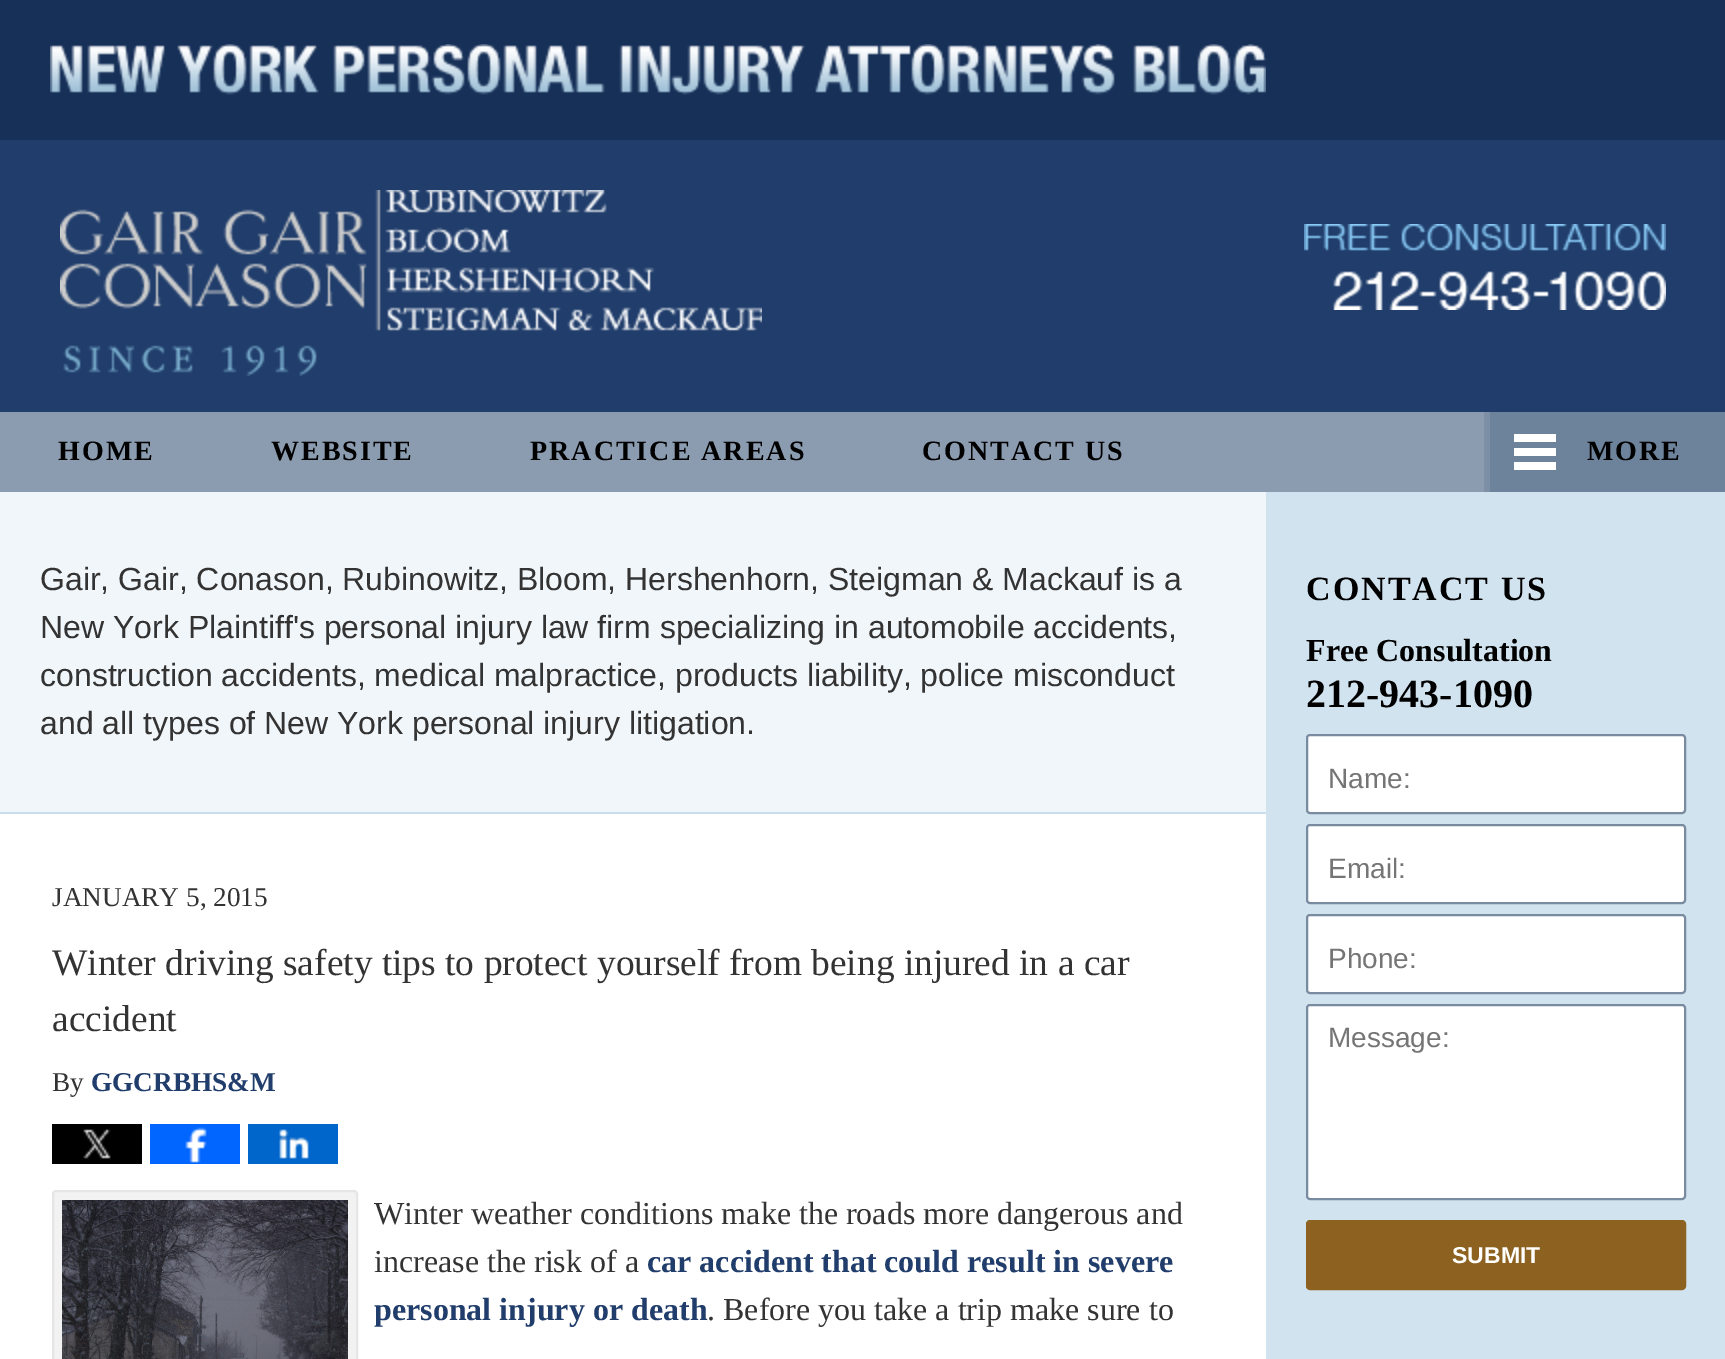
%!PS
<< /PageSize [1725 1359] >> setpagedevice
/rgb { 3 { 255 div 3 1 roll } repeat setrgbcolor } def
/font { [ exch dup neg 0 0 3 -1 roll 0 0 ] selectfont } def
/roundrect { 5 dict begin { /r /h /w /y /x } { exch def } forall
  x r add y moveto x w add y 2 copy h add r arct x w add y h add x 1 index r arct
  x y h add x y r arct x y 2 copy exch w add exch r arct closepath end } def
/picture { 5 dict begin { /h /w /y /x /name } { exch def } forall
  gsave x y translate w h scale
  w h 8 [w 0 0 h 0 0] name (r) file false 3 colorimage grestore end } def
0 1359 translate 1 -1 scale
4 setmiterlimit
32 61 107 rgb
0 0 1725 1359 rectfill
23 48 88 rgb
0 0 1725 140 rectfill
(img/1.rgb) 50 44 1216 51 picture
(img/2.rgb) 60 190 702 186 picture
(img/3.rgb) 1304 224 362 86 picture
[
  [0 412 1484 80 139 156 176]
  [1490 412 235 80 109 130 155]
  [1484 412 6 80 124 143 165]
  [1514 434 42 8 255 255 255]
  [1514 448 42 8 255 255 255]
  [1514 462 42 8 255 255 255]
  [0 814 1266 545 255 255 255]
  [0 492 1266 320 241 246 250]
  [0 812 1266 2 203 222 237]
] { aload pop rgb rectfill } forall
(img/4.rgb) 52 1124 90 40 picture
(img/5.rgb) 150 1124 90 40 picture
(img/6.rgb) 248 1124 90 40 picture
242 242 242 rgb
53 1191 304 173 3 roundrect gsave fill grestore
230 230 230 rgb
2 setlinewidth
stroke
(img/7.rgb) 62 1200 286 159 picture
210 227 240 rgb
1266 492 459 867 rectfill
255 255 255 rgb
1307 735 378 78 3 roundrect gsave fill grestore
120 139 160 rgb
stroke
255 255 255 rgb
1307 825 378 78 3 roundrect gsave fill grestore
120 139 160 rgb
stroke
255 255 255 rgb
1307 915 378 78 3 roundrect gsave fill grestore
120 139 160 rgb
stroke
255 255 255 rgb
1307 1005 378 194 3 roundrect gsave fill grestore
120 139 160 rgb
stroke
141 97 32 rgb
1310 1222 moveto 1682 1222 lineto 1683 1222 1684 1223 1684 1224 curveto 1684 1286 lineto 1308 1286 lineto 1308 1224 lineto 1308 1223 1309 1222 1310 1222 curveto closepath fill
1307 1221 378 68 3 roundrect stroke
1308 1286 376 2 rectfill
/LiberationSerif-Bold 28 font
0 0 0 rgb
58 460 moveto 2 0 (HOME) ashow
271 460 moveto 2 0 (WEBSITE) ashow
530 460 moveto 2 0 (PRACTICE AREAS) ashow
922 460 moveto 2 0 (CONTACT US) ashow
1587 460 moveto 2 0 (MORE) ashow
/LiberationSans-Regular 32 font
51 51 51 rgb
[
  [(Gair, Gair, Conason, Rubinowitz, Bloom, Hershenhorn, Steigman & Mackauf is a) 40 590]
  [(New York Plaintiff's personal injury law firm specializing in automobile accidents,) 40 638]
  [(construction accidents, medical malpractice, products liability, police misconduct) 40 686]
  [(and all types of New York personal injury litigation.) 40 734]
] { aload pop moveto show } forall
/LiberationSerif-Regular 27.25 font
52 906 moveto (JANUARY 5, 2015) show
/LiberationSerif-Regular 37.45 font
52 975 moveto (Winter driving safety tips to protect yourself from being injured in a car) show
52 1031 moveto (accident) show
/LiberationSerif-Regular 27.25 font
52 1091 moveto (By) show
/LiberationSerif-Bold 27.25 font
32 61 107 rgb
91 1091 moveto (GGCRBHS&M) show
/LiberationSerif-Regular 32 font
51 51 51 rgb
374 1224 moveto (Winter weather conditions make the roads more dangerous and) show
374 1272 moveto (increase the risk of a) show
/LiberationSerif-Bold 32 font
32 61 107 rgb
647 1272 moveto (car accident that could result in severe) show
374 1320 moveto (personal injury or death) show
/LiberationSerif-Regular 32 font
51 51 51 rgb
707 1320 moveto (. Before you take a trip make sure to) show
/LiberationSerif-Bold 34 font
0 0 0 rgb
1306 600 moveto 2 0 (CONTACT US) ashow
/LiberationSerif-Bold 32 font
1306 661 moveto (Free Consultation) show
/LiberationSerif-Bold 40 font
1306 707 moveto (212-943-1090) show
/LiberationSans-Regular 28 font
117 117 117 rgb
[
  [(Name:) 1328 788]
  [(Email:) 1328 878]
  [(Phone:) 1328 968]
  [(Message:) 1328 1047]
] { aload pop moveto show } forall
/LiberationSans-Bold 23 font
255 255 255 rgb
1452 1263 moveto (SUBMIT) show
showpage
